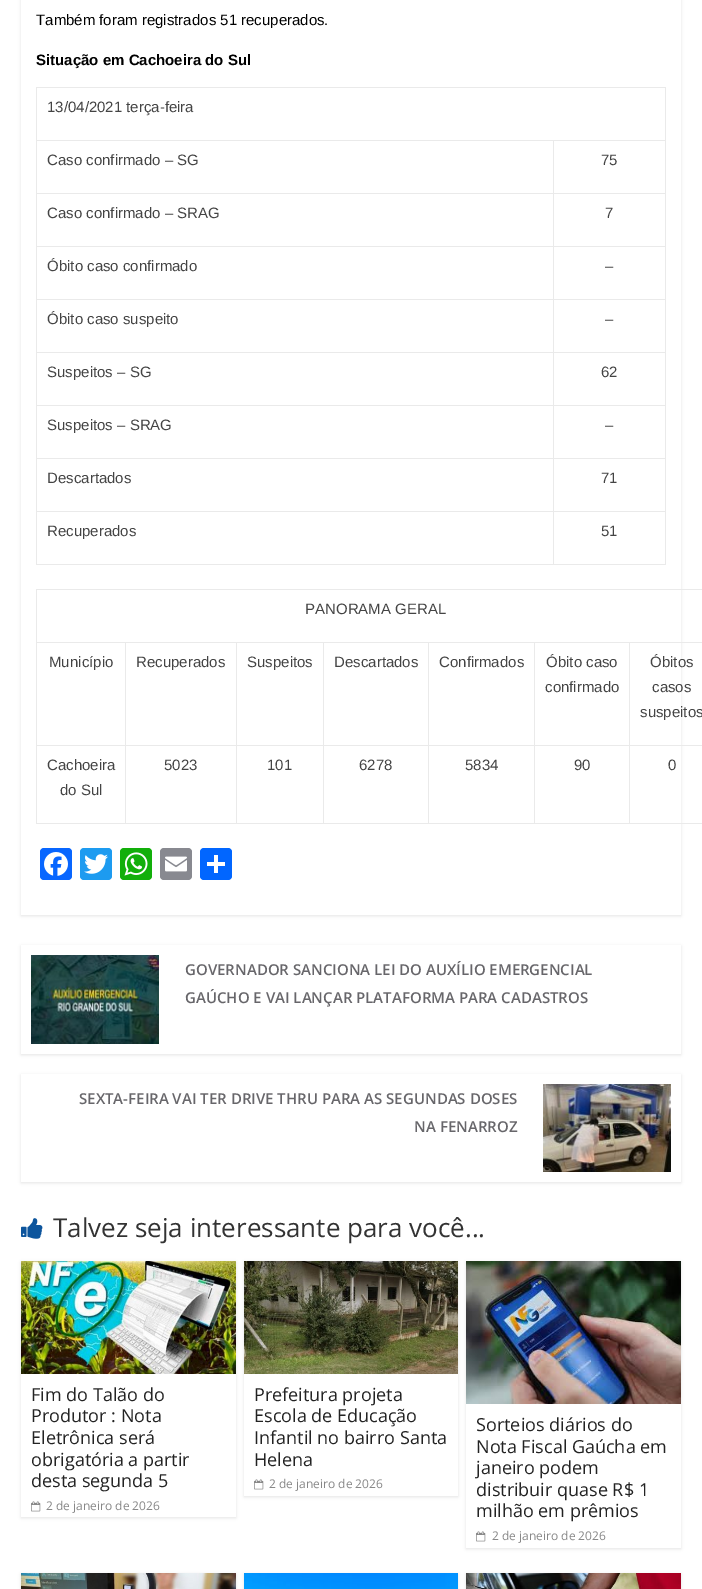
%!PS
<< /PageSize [702 1589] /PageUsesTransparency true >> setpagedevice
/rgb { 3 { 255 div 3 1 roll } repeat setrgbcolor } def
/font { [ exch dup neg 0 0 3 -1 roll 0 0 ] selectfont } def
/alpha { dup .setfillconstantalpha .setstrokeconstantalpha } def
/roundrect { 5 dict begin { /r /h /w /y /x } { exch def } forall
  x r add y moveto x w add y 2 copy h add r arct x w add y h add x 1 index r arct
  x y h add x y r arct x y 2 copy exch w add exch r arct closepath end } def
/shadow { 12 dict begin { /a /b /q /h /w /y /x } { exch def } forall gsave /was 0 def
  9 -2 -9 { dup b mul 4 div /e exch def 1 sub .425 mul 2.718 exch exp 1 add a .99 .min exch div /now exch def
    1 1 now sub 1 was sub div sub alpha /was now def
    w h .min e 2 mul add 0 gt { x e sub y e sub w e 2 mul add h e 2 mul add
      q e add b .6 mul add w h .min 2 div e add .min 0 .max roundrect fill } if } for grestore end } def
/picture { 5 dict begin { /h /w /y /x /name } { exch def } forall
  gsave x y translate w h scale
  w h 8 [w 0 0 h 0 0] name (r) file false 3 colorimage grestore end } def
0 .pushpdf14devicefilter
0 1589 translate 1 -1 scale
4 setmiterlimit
255 255 255 rgb
0 0 702 1589 rectfill
gsave
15 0 moveto 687 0 lineto 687 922 lineto 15 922 lineto closepath 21 -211 moveto 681 -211 lineto 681 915 lineto 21 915 lineto closepath eoclip newpath
0 0 0 rgb
21 -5 660 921 0 1.5 0.1 shadow
grestore
[
  [36 87 630 1 234 234 234]
  [553 140 113 1 234 234 234]
  [553 193 113 1 234 234 234]
  [553 246 113 1 234 234 234]
  [553 299 113 1 234 234 234]
  [553 352 113 1 234 234 234]
  [553 405 113 1 234 234 234]
  [553 458 113 1 234 234 234]
  [553 511 113 1 234 234 234]
  [665 511 1 54 234 234 234]
  [665 458 1 54 234 234 234]
  [665 405 1 54 234 234 234]
  [665 352 1 54 234 234 234]
  [665 299 1 54 234 234 234]
  [665 246 1 54 234 234 234]
  [665 193 1 54 234 234 234]
  [665 140 1 54 234 234 234]
  [665 87 1 54 234 234 234]
  [553 564 113 1 234 234 234]
  [553 511 1 54 234 234 234]
  [36 511 518 1 234 234 234]
  [553 458 1 54 234 234 234]
  [36 458 518 1 234 234 234]
  [553 405 1 54 234 234 234]
  [36 405 518 1 234 234 234]
  [553 352 1 54 234 234 234]
  [36 352 518 1 234 234 234]
  [553 299 1 54 234 234 234]
  [36 299 518 1 234 234 234]
  [553 246 1 54 234 234 234]
  [36 246 518 1 234 234 234]
  [553 193 1 54 234 234 234]
  [36 193 518 1 234 234 234]
  [553 140 1 54 234 234 234]
  [36 140 518 1 234 234 234]
  [36 564 518 1 234 234 234]
  [36 511 1 54 234 234 234]
  [36 458 1 54 234 234 234]
  [36 405 1 54 234 234 234]
  [36 352 1 54 234 234 234]
  [36 299 1 54 234 234 234]
  [36 246 1 54 234 234 234]
  [36 193 1 54 234 234 234]
  [36 140 1 54 234 234 234]
  [36 87 1 54 234 234 234]
  [36 589 666 1 234 234 234]
  [629 642 73 1 234 234 234]
  [629 745 73 1 234 234 234]
  [629 823 73 1 234 234 234]
  [629 745 1 79 234 234 234]
  [534 745 96 1 234 234 234]
  [629 642 1 104 234 234 234]
  [534 642 96 1 234 234 234]
  [534 823 96 1 234 234 234]
  [534 745 1 79 234 234 234]
  [428 745 107 1 234 234 234]
  [534 642 1 104 234 234 234]
  [428 642 107 1 234 234 234]
  [428 823 107 1 234 234 234]
  [428 745 1 79 234 234 234]
  [323 745 106 1 234 234 234]
  [428 642 1 104 234 234 234]
  [323 642 106 1 234 234 234]
  [323 823 106 1 234 234 234]
  [323 745 1 79 234 234 234]
  [236 745 88 1 234 234 234]
  [323 642 1 104 234 234 234]
  [236 642 88 1 234 234 234]
  [236 823 88 1 234 234 234]
  [236 745 1 79 234 234 234]
  [125 745 112 1 234 234 234]
  [236 642 1 104 234 234 234]
  [125 642 112 1 234 234 234]
  [125 823 112 1 234 234 234]
  [125 745 1 79 234 234 234]
  [36 745 90 1 234 234 234]
  [125 642 1 104 234 234 234]
  [36 642 90 1 234 234 234]
  [36 823 90 1 234 234 234]
  [36 745 1 79 234 234 234]
  [36 642 1 104 234 234 234]
  [36 589 1 54 234 234 234]
] { aload pop rgb rectfill } forall
8 102 255 rgb
40 848 32 32 4 roundrect fill
(img/1.rgb) 44 852 24 24 picture
29 155 240 rgb
80 848 32 32 4 roundrect fill
(img/2.rgb) 84 854 24 20 picture
18 175 10 rgb
120 848 32 32 4 roundrect fill
(img/3.rgb) 124 852 24 24 picture
136 137 144 rgb
160 848 32 32 4 roundrect fill
(img/4.rgb) 165 856 22 16 picture
1 102 255 rgb
200 848 32 32 4 roundrect fill
255 255 255 rgb
214 855 4 18 rectfill
207 862 18 4 rectfill
gsave
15 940 moveto 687 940 lineto 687 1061 lineto 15 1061 lineto closepath 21 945 moveto 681 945 lineto 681 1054 lineto 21 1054 lineto closepath eoclip newpath
0 0 0 rgb
21 946 660 109 0 1.5 0.1 shadow
grestore
(img/5.rgb) 31 955 128 89 picture
gsave
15 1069 moveto 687 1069 lineto 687 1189 lineto 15 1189 lineto closepath 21 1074 moveto 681 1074 lineto 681 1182 lineto 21 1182 lineto closepath eoclip newpath
0 0 0 rgb
21 1075 660 108 0 1.5 0.1 shadow
grestore
(img/6.rgb) 543 1084 128 88 picture
(img/7.rgb) 21 1218 22 21 picture
gsave
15 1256 moveto 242 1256 lineto 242 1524 lineto 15 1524 lineto closepath 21 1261 moveto 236 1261 lineto 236 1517 lineto 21 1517 lineto closepath eoclip newpath
0 0 0 rgb
21 1262 215 256 0 1.5 0.1 shadow
grestore
(img/8.rgb) 21 1261 215 113 picture
(img/9.rgb) 31 1501 10 11 picture
gsave
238 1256 moveto 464 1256 lineto 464 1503 lineto 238 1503 lineto closepath 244 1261 moveto 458 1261 lineto 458 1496 lineto 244 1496 lineto closepath eoclip newpath
0 0 0 rgb
244 1262 214 235 0 1.5 0.1 shadow
grestore
(img/10.rgb) 244 1261 214 113 picture
(img/9.rgb) 254 1479 10 11 picture
gsave
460 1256 moveto 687 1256 lineto 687 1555 lineto 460 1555 lineto closepath 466 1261 moveto 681 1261 lineto 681 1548 lineto 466 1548 lineto closepath eoclip newpath
0 0 0 rgb
466 1262 215 287 0 1.5 0.1 shadow
grestore
(img/11.rgb) 466 1261 215 143 picture
(img/9.rgb) 476 1531 10 11 picture
0 0 0 rgb
21 1574 215 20 0 1.5 0.1 shadow
(img/12.rgb) 21 1573 215 16 picture
244 1574 214 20 0 1.5 0.1 shadow
(img/13.rgb) 244 1573 214 16 picture
466 1574 215 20 0 1.5 0.1 shadow
(img/14.rgb) 466 1573 215 16 picture
/LiberationSans-Regular 15 font
36 25 moveto (Também foram registrados 51 recuperados.) show
/LiberationSans-Bold 15 font
36 65 moveto (Situação em Cachoeira do Sul) show
/LiberationSans-Regular 15 font
68 68 68 rgb
[
  [(13/04/2021 terça-feira) 47 112]
  [(Caso confirmado – SG) 47 165]
  [(75) 601 165]
  [(Caso confirmado – SRAG) 47 218]
  [(7) 605 218]
  [(Óbito caso confirmado) 47 271]
  [(–) 605 271]
  [(Óbito caso suspeito) 47 324]
  [(–) 605 324]
  [(Suspeitos – SG) 47 377]
  [(62) 601 377]
  [(Suspeitos – SRAG) 47 430]
  [(–) 605 430]
  [(Descartados) 47 483]
  [(71) 601 483]
  [(Recuperados) 47 536]
  [(51) 601 536]
  [(PANORAMA GERAL) 305 614]
  [(Município) 49 667]
  [(Recuperados) 136 667]
  [(Suspeitos) 247 667]
  [(Descartados) 334 667]
  [(Confirmados) 439 667]
  [(Óbito caso) 546 667]
  [(confirmado) 545 692]
  [(Óbitos) 650 667]
  [(casos) 652 692]
  [(suspeitos) 640 717]
  [(Cachoeira) 47 770]
  [(do Sul) 60 795]
  [(5023) 164 770]
  [(101) 267 770]
  [(6278) 359 770]
  [(5834) 465 770]
  [(90) 574 770]
  [(0) 668 770]
] { aload pop moveto show } forall
/OpenSans-SemiBold 15 font
103 102 106 rgb
[
  [(GOVERNADOR SANCIONA LEI DO AUXÍLIO EMERGENCIAL) 185 975]
  [(GAÚCHO E VAI LANÇAR PLATAFORMA PARA CADASTROS) 185 1003]
  [(SEXTA-FEIRA VAI TER DRIVE THRU PARA AS SEGUNDAS DOSES) 79 1104]
  [(NA FENARROZ) 414 1132]
] { aload pop moveto show } forall
/OpenSans-Regular 26 font
51 51 51 rgb
53 1237 moveto (Talvez seja interessante para você...) show
/OpenSans-Regular 18 font
35 35 35 rgb
[
  [(Fim do Talão do) 31 1401]
  [(Produtor : Nota) 31 1422]
  [(Eletrônica será) 31 1444]
  [(obrigatória a partir) 31 1466]
  [(desta segunda 5) 31 1487]
] { aload pop moveto show } forall
/OpenSans-Regular 12 font
136 136 136 rgb
46 1510 moveto (2 de janeiro de 2026) show
/OpenSans-Regular 18 font
35 35 35 rgb
[
  [(Prefeitura projeta) 254 1401]
  [(Escola de Educação) 254 1422]
  [(Infantil no bairro Santa) 254 1444]
  [(Helena) 254 1466]
] { aload pop moveto show } forall
/OpenSans-Regular 12 font
136 136 136 rgb
269 1488 moveto (2 de janeiro de 2026) show
/OpenSans-Regular 18 font
35 35 35 rgb
[
  [(Sorteios diários do) 476 1431]
  [(Nota Fiscal Gaúcha em) 476 1453]
  [(janeiro podem) 476 1474]
  [(distribuir quase R$ 1) 476 1496]
  [(milhão em prêmios) 476 1517]
] { aload pop moveto show } forall
/OpenSans-Regular 12 font
136 136 136 rgb
492 1540 moveto (2 de janeiro de 2026) show
.poppdf14devicefilter showpage
